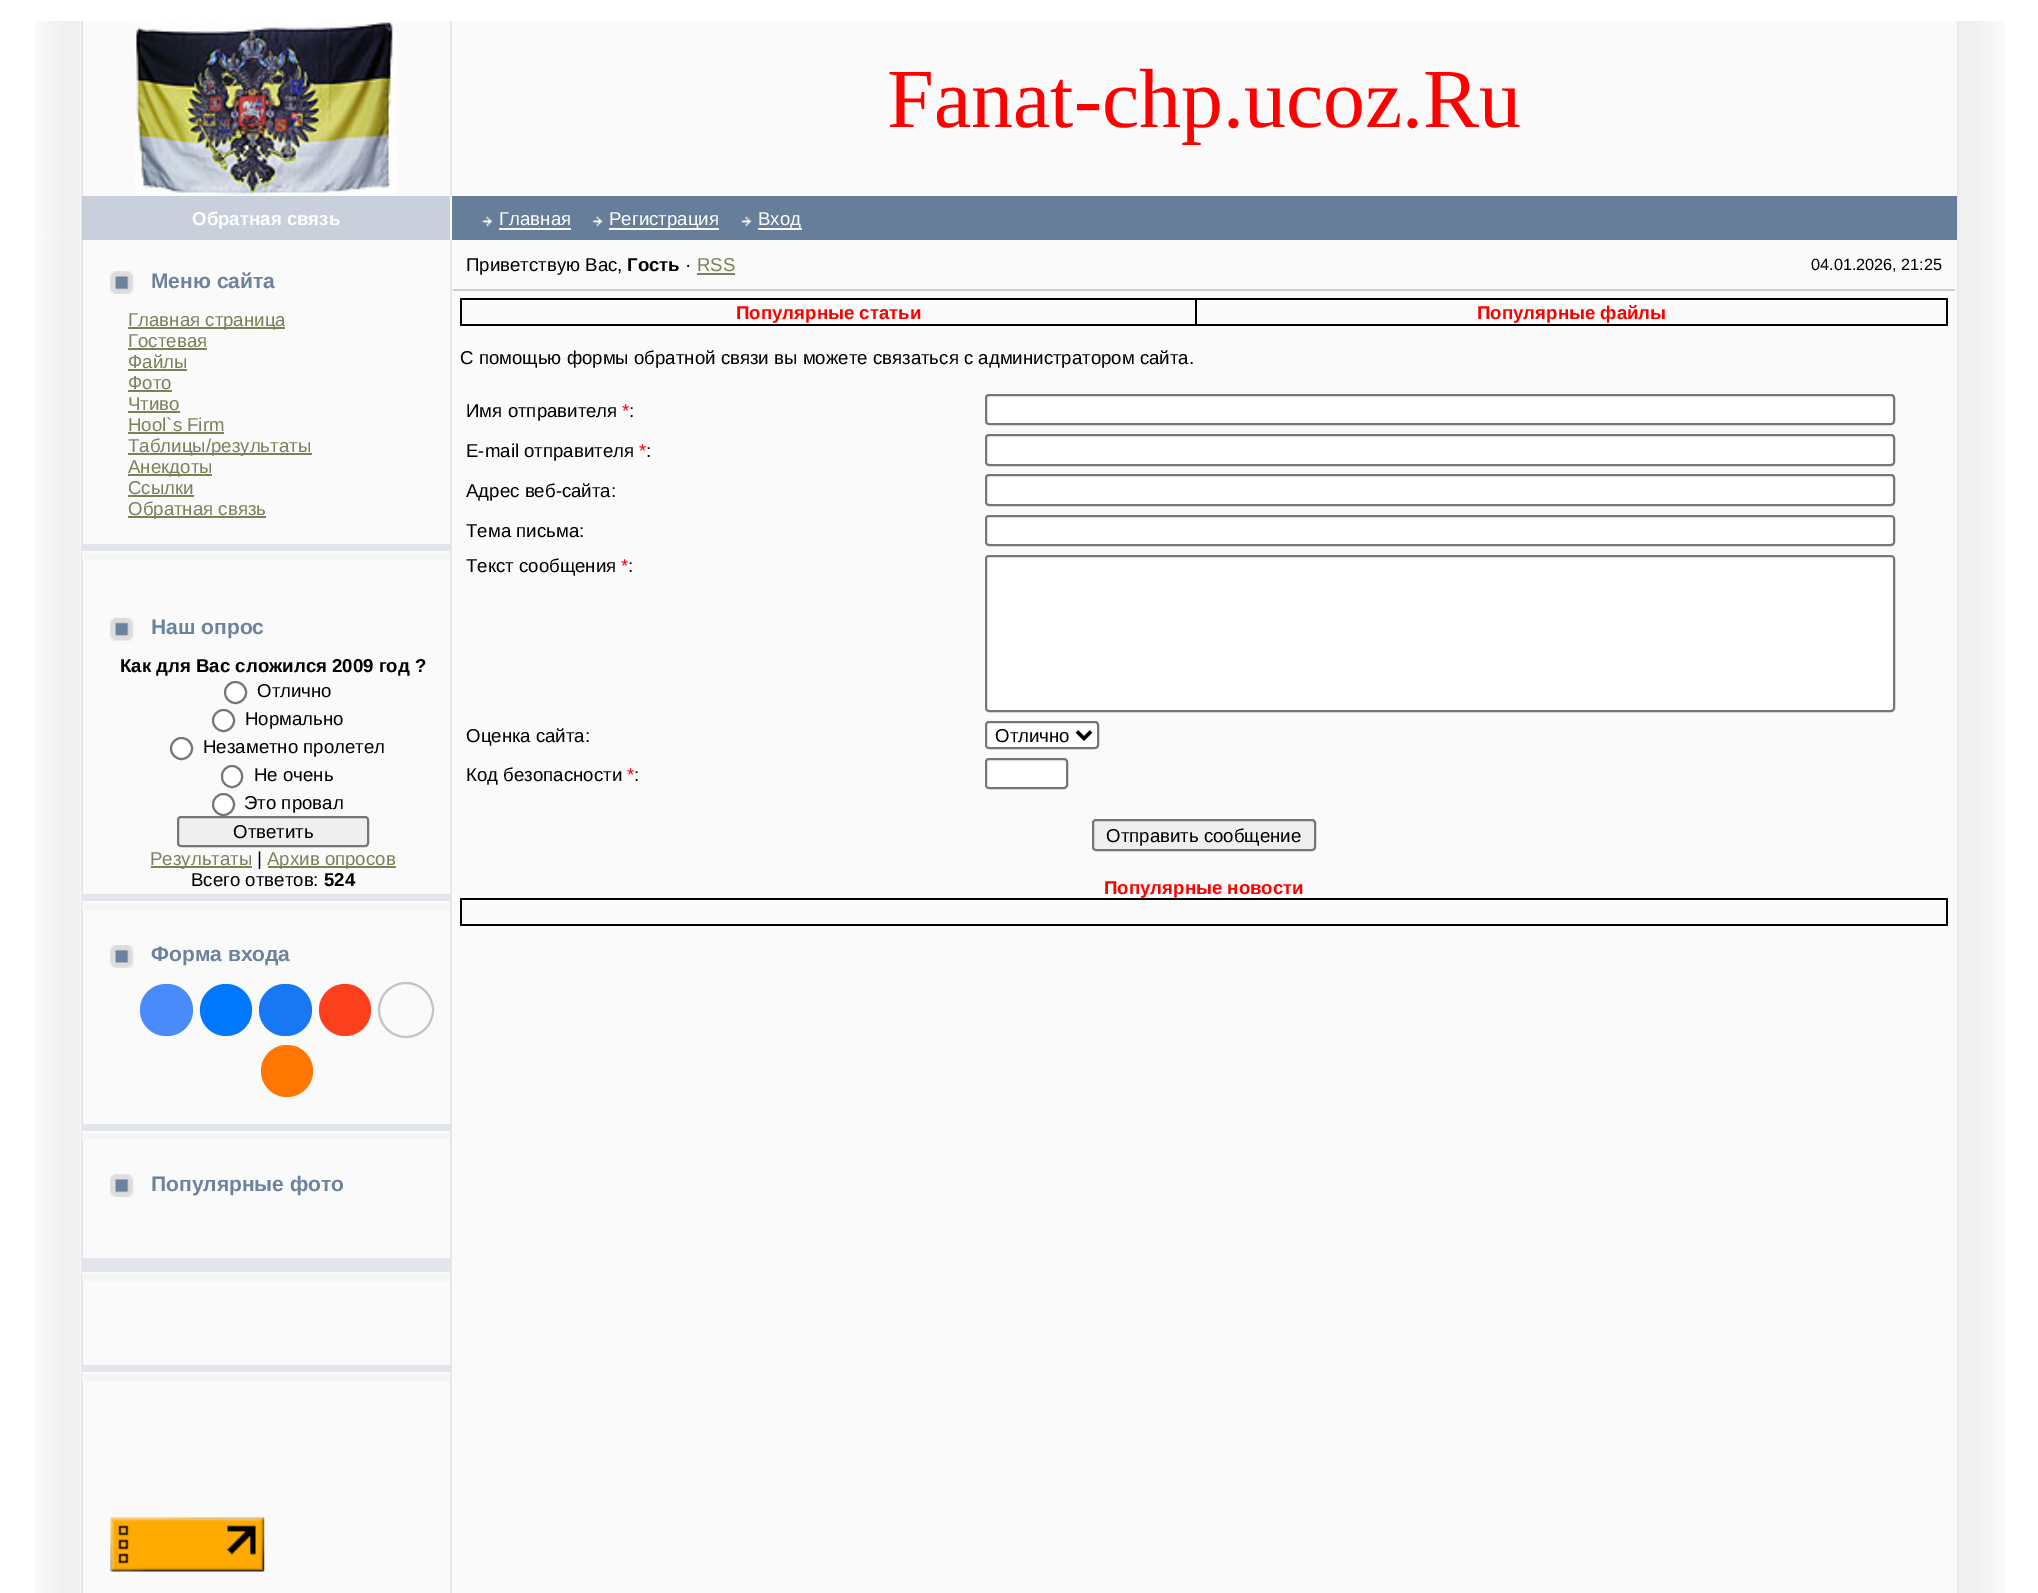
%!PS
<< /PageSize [2038 1593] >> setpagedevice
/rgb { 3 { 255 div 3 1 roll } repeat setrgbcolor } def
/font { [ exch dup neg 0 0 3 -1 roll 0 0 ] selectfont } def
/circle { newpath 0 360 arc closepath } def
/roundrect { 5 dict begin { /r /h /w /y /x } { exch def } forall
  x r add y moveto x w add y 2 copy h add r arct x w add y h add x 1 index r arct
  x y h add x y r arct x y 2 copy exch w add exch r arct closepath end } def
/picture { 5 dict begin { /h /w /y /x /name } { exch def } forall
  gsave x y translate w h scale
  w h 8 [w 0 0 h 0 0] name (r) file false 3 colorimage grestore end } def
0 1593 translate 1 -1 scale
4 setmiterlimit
255 255 255 rgb
0 0 2038 1593 rectfill
(img/1.rgb) 34 21 47 219 picture
[
  [83 21 1874 175 250 250 250]
  [1957 21 2 1572 229 231 234]
  [81 21 2 1572 229 231 234]
  [450 21 2 175 229 231 234]
] { aload pop rgb rectfill } forall
(img/2.rgb) 135 21 262 175 picture
[
  [82 196 368 44 201 208 219]
  [450 196 2 44 250 250 250]
  [452 196 1505 44 103 126 154]
] { aload pop rgb rectfill } forall
(img/3.rgb) 482 216 11 11 picture
250 250 250 rgb
499 228 72 2 rectfill
(img/4.rgb) 592 216 11 11 picture
609 228 110 2 rectfill
(img/3.rgb) 741 216 11 11 picture
758 228 44 2 rectfill
(img/5.rgb) 1958 21 47 219 picture
(img/6.rgb) 34 240 47 1353 picture
83 240 1874 1353 rectfill
229 231 234 rgb
450 240 2 1353 rectfill
(img/7.rgb) 110 271 24 23 picture
[
  [128 327 157 2 121 131 90]
  [128 348 79 2 121 131 90]
  [128 369 59 2 121 131 90]
  [128 390 44 2 121 131 90]
  [128 411 52 2 121 131 90]
  [128 432 96 2 121 131 90]
  [128 453 184 2 121 131 90]
  [128 474 84 2 121 131 90]
  [128 495 66 2 121 131 90]
  [128 516 138 2 121 131 90]
  [82 544 368 7 226 230 234]
  [82 553 368 7 245 245 245]
  [82 551 1 2 250 250 250]
] { aload pop rgb rectfill } forall
(img/8.rgb) 110 617 24 24 picture
255 255 255 rgb
235.5 692.5 10.5 circle gsave fill grestore
118 118 118 rgb
2 setlinewidth
stroke
255 255 255 rgb
223.5 720.5 10.5 circle gsave fill grestore
118 118 118 rgb
stroke
255 255 255 rgb
181.5 748.5 10.5 circle gsave fill grestore
118 118 118 rgb
stroke
255 255 255 rgb
222 766 20 21 10 roundrect gsave fill grestore
118 118 118 rgb
stroke
255 255 255 rgb
223.5 804.5 10.5 circle gsave fill grestore
118 118 118 rgb
stroke
239 239 239 rgb
178 817 190 29 3 roundrect gsave fill grestore
118 118 118 rgb
stroke
[
  [151 866 101 2 121 131 90]
  [268 866 128 2 121 131 90]
  [82 894 368 7 226 230 234]
  [82 903 368 7 245 245 245]
  [82 901 1 2 250 250 250]
] { aload pop rgb rectfill } forall
(img/9.rgb) 110 945 24 23 picture
73 139 250 rgb
140 984 53 52 26 roundrect fill
0 119 255 rgb
226 1010 26 circle fill
24 119 242 rgb
259 984 53 52 26 roundrect fill
252 63 29 rgb
345 1010 26 circle fill
196 196 196 rgb
406 1010 27 circle stroke
255 119 0 rgb
287 1071 26 circle fill
[
  [82 1124 368 7 226 230 234]
  [82 1133 368 6 245 245 245]
  [82 1131 1 2 250 250 250]
] { aload pop rgb rectfill } forall
(img/7.rgb) 110 1174 24 23 picture
[
  [82 1258 368 14 226 230 234]
  [82 1274 368 7 245 245 245]
  [82 1272 1 2 250 250 250]
  [82 1365 368 7 226 230 234]
  [82 1374 368 7 245 245 245]
  [82 1372 1 2 250 250 250]
] { aload pop rgb rectfill } forall
(img/10.rgb) 110 1517 155 55 picture
[
  [697 273 38 2 121 131 90]
  [453 289 1502 2 201 208 219]
  [1195 298 753 2 0 0 0]
  [1946 298 2 28 0 0 0]
  [1195 324 753 2 0 0 0]
  [1195 298 2 28 0 0 0]
  [460 298 737 2 0 0 0]
  [460 324 737 2 0 0 0]
  [460 298 2 28 0 0 0]
] { aload pop rgb rectfill } forall
255 255 255 rgb
986 395 908 29 3 roundrect gsave fill grestore
118 118 118 rgb
stroke
255 255 255 rgb
986 435 908 30 3 roundrect gsave fill grestore
118 118 118 rgb
stroke
255 255 255 rgb
986 475 908 30 3 roundrect gsave fill grestore
118 118 118 rgb
stroke
255 255 255 rgb
986 516 908 29 3 roundrect gsave fill grestore
118 118 118 rgb
stroke
255 255 255 rgb
986 556 908 155 3 roundrect gsave fill grestore
118 118 118 rgb
stroke
255 255 255 rgb
986 722 112 26 3 roundrect gsave fill grestore
118 118 118 rgb
stroke
0 0 0 rgb
3.5 setlinewidth
1077 731.5 moveto 1084 738.5 lineto 1091 731.5 lineto stroke
255 255 255 rgb
986 759 81 29 3 roundrect gsave fill grestore
118 118 118 rgb
2 setlinewidth
stroke
239 239 239 rgb
1093 820 222 30 3 roundrect gsave fill grestore
118 118 118 rgb
stroke
[
  [460 898 1488 2 0 0 0]
  [1946 898 2 28 0 0 0]
  [460 924 1488 2 0 0 0]
  [460 898 2 28 0 0 0]
] { aload pop rgb rectfill } forall
(img/11.rgb) 1958 240 47 1353 picture
/LiberationSerif-Regular 84 font
255 0 0 rgb
887 127 moveto (Fanat-chp.ucoz.Ru) show
/LiberationSans-Bold 18.65 font
255 255 255 rgb
192 225 moveto (Обратная связь) show
/LiberationSans-Regular 18.65 font
[
  [(Главная) 499 225]
  [(Регистрация) 609 225]
  [(Вход) 758 225]
] { aload pop moveto show } forall
/LiberationSans-Bold 21 font
108 130 157 rgb
151 288 moveto (Меню сайта) show
/LiberationSans-Regular 18.65 font
121 131 90 rgb
[
  [(Главная страница) 128 326]
  [(Гостевая) 128 347]
  [(Файлы) 128 368]
  [(Фото) 128 389]
  [(Чтиво) 128 410]
  [(Hool`s Firm) 128 431]
  [(Таблицы/результаты) 128 452]
  [(Анекдоты) 128 473]
  [(Ссылки) 128 494]
  [(Обратная связь) 128 515]
] { aload pop moveto show } forall
/LiberationSans-Bold 21 font
108 130 157 rgb
151 634 moveto (Наш опрос) show
/LiberationSans-Bold 18.65 font
0 0 0 rgb
120 672 moveto (Как для Вас сложился 2009 год ?) show
/LiberationSans-Regular 18.65 font
[
  [(Отлично) 257 697]
  [(Нормально) 245 725]
  [(Незаметно пролетел) 203 753]
  [(Не очень) 254 781]
  [(Это провал) 244 809]
  [(Ответить) 233 838]
] { aload pop moveto show } forall
121 131 90 rgb
150 865 moveto (Результаты) show
0 0 0 rgb
257 865 moveto (|) show
121 131 90 rgb
267 865 moveto (Архив опросов) show
0 0 0 rgb
191 886 moveto (Всего ответов:) show
/LiberationSans-Bold 18.65 font
324 886 moveto (524) show
/LiberationSans-Bold 21 font
108 130 157 rgb
151 961 moveto (Форма входа) show
151 1191 moveto (Популярные фото) show
/LiberationSans-Regular 18.65 font
0 0 0 rgb
466 271 moveto (Приветствую Вас,) show
/LiberationSans-Bold 18.65 font
627 271 moveto (Гость) show
/LiberationSans-Regular 18.65 font
685 271 moveto (·) show
121 131 90 rgb
697 271 moveto (RSS) show
/LiberationSans-Regular 16.25 font
0 0 0 rgb
1811 270 moveto (04.01.2026, 21:25) show
/LiberationSans-Bold 18.65 font
255 0 0 rgb
736 319 moveto (Популярные статьи) show
1477 319 moveto (Популярные файлы) show
/LiberationSans-Regular 18.65 font
0 0 0 rgb
460 364 moveto (С помощью формы обратной связи вы можете связаться с администратором сайта.) show
466 417 moveto (Имя отправителя) show
255 0 0 rgb
622 417 moveto (*) show
0 0 0 rgb
629 417 moveto (:) show
466 457 moveto (E-mail отправителя) show
255 0 0 rgb
639 457 moveto (*) show
0 0 0 rgb
[
  [(:) 646 457]
  [(Адрес веб-сайта:) 466 497]
  [(Тема письма:) 466 537]
  [(Текст сообщения) 466 572]
] { aload pop moveto show } forall
255 0 0 rgb
621 572 moveto (*) show
0 0 0 rgb
[
  [(:) 628 572]
  [(Оценка сайта:) 466 742]
  [(Отлично) 995 742]
  [(Код безопасности) 466 781]
] { aload pop moveto show } forall
255 0 0 rgb
627 781 moveto (*) show
0 0 0 rgb
634 781 moveto (:) show
1106 842 moveto (Отправить сообщение) show
/LiberationSans-Bold 18.65 font
255 0 0 rgb
1104 894 moveto (Популярные новости) show
showpage
